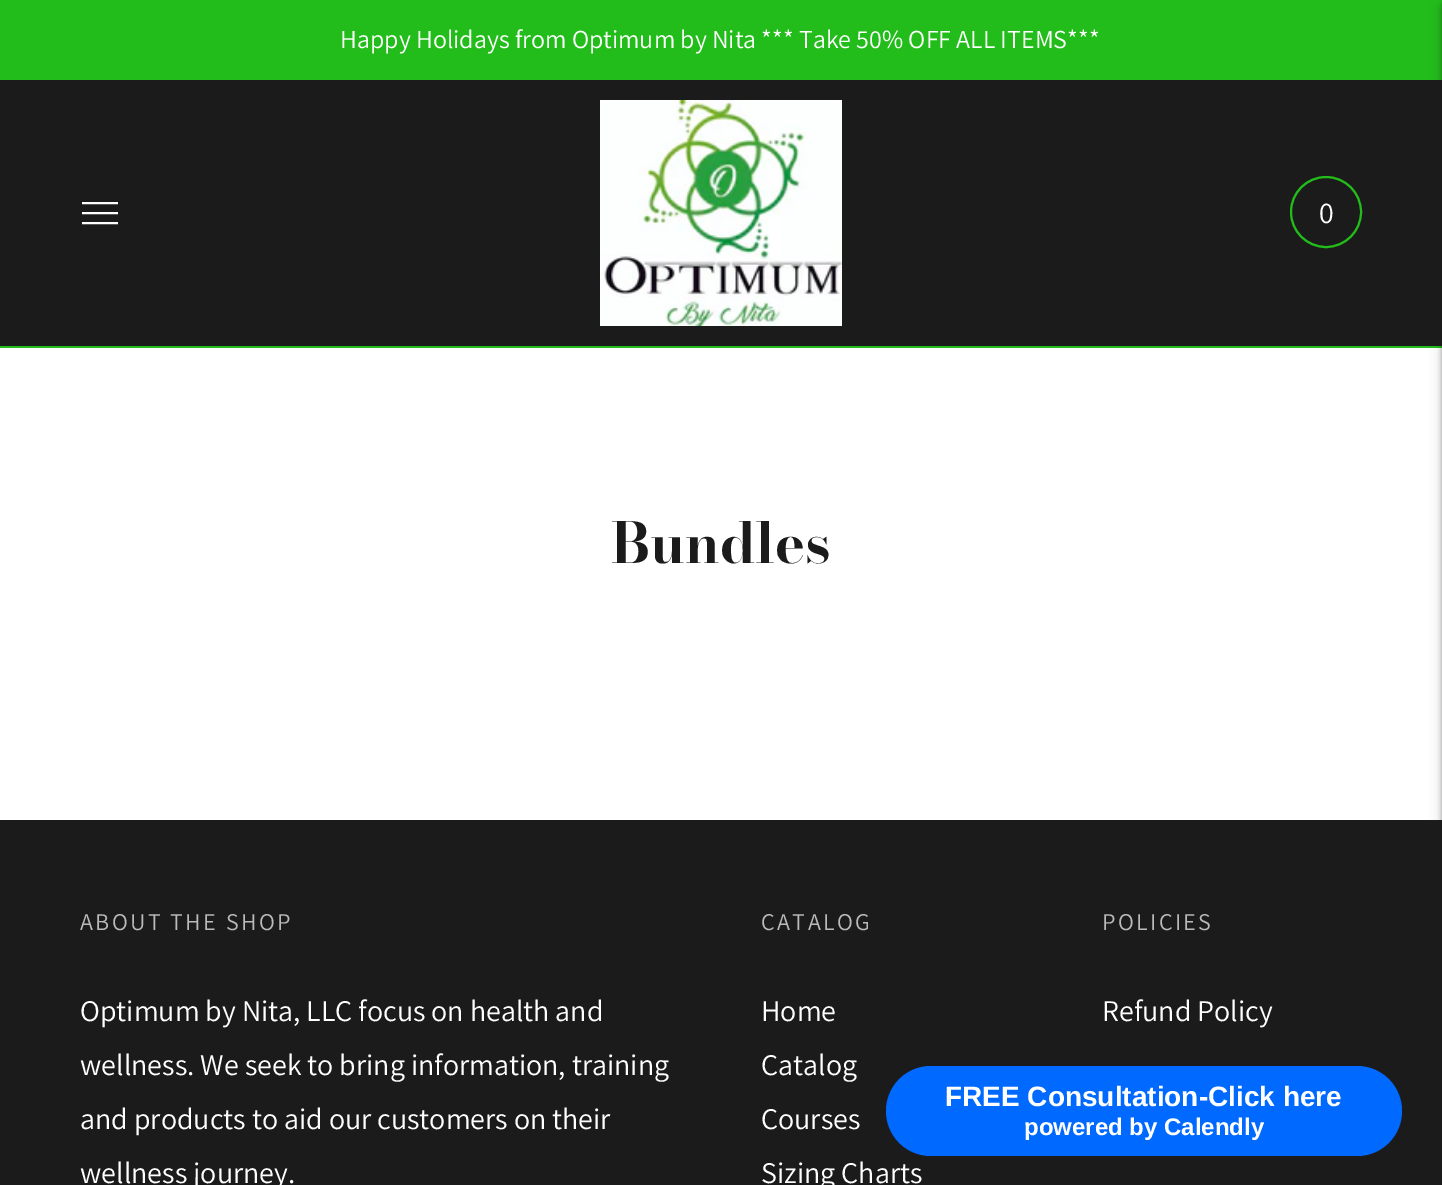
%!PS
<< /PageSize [1442 1185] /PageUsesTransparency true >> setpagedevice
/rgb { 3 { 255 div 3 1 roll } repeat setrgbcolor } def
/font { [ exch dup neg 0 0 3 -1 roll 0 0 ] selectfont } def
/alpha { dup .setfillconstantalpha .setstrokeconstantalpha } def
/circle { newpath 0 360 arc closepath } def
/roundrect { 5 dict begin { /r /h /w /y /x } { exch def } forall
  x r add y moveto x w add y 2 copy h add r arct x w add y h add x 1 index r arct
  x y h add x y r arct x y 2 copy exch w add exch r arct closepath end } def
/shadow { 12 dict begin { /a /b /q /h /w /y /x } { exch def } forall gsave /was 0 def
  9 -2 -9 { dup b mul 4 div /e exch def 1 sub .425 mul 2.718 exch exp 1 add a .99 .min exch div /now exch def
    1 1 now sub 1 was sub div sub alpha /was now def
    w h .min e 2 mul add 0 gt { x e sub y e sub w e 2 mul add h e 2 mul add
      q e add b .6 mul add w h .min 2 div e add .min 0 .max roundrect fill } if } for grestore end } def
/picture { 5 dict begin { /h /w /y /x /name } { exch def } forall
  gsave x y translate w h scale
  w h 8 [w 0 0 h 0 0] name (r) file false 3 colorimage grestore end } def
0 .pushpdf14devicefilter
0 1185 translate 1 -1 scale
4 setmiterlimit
255 255 255 rgb
0 0 1442 1185 rectfill
[
  [0 0 1442 80 34 189 26]
  [0 80 1442 266 27 27 27]
  [0 346 1442 2 34 189 26]
  [0 820 1442 365 27 27 27]
] { aload pop rgb rectfill } forall
0 0 0 rgb
1442 8 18 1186 0 6 0.1 shadow
1442 4 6 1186 0 2 0.15 shadow
255 255 255 rgb
2 setlinewidth
82 203 moveto 118 203 lineto 82 213 moveto 118 213 lineto 82 223 moveto 118 223 lineto stroke
(img/1.rgb) 600 100 242 226 picture
34 189 26 rgb
1326 212 35 circle stroke
0 0 0 rgb
1442 8 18 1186 0 6 0.1 shadow
1442 4 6 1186 0 2 0.15 shadow
0 105 255 rgb
886 1066 516 90 45 roundrect fill
/Assistant-Regular 26 font
255 255 255 rgb
340 48 moveto (Happy Holidays from Optimum by Nita *** Take 50% OFF ALL ITEMS***) show
/Assistant-Regular 30 font
1319 223 moveto (0) show
/BodoniModa-Bold 56 font
27 27 27 rgb
611 563 moveto (Bundles) show
/Assistant-Regular 24 font
187 187 187 rgb
80 930 moveto 2.4 0 (ABOUT THE SHOP) ashow
/Assistant-Regular 30 font
255 255 255 rgb
[
  [(Optimum by Nita, LLC focus on health and) 80 1021]
  [(wellness. We seek to bring information, training) 80 1075]
  [(and products to aid our customers on their) 80 1129]
  [(wellness journey.) 80 1183]
] { aload pop moveto show } forall
/Assistant-Regular 24 font
187 187 187 rgb
761 930 moveto 2.4 0 (CATALOG) ashow
/Assistant-Regular 30 font
255 255 255 rgb
[
  [(Home) 761 1021]
  [(Catalog) 761 1075]
  [(Courses) 761 1129]
  [(Sizing Charts) 761 1183]
] { aload pop moveto show } forall
/Assistant-Regular 24 font
187 187 187 rgb
1102 930 moveto 2.4 0 (POLICIES) ashow
/Assistant-Regular 30 font
255 255 255 rgb
1102 1021 moveto (Refund Policy) show
/LiberationSans-Bold 28 font
945 1106 moveto (FREE Consultation-Click here) show
/LiberationSans-Bold 24 font
1024 1135 moveto (powered by Calendly) show
.poppdf14devicefilter showpage
